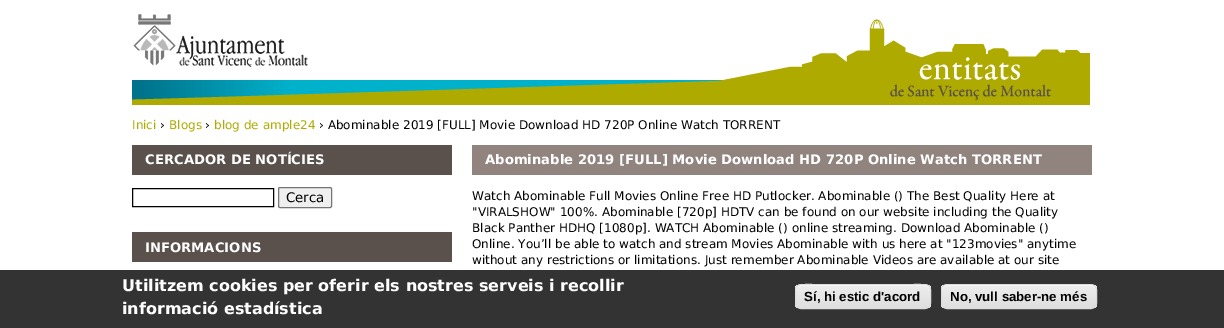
%!PS
<< /PageSize [1224 328] >> setpagedevice
/rgb { 3 { 255 div 3 1 roll } repeat setrgbcolor } def
/font { [ exch dup neg 0 0 3 -1 roll 0 0 ] selectfont } def
/roundrect { 5 dict begin { /r /h /w /y /x } { exch def } forall
  x r add y moveto x w add y 2 copy h add r arct x w add y h add x 1 index r arct
  x y h add x y r arct x y 2 copy exch w add exch r arct closepath end } def
/picture { 5 dict begin { /h /w /y /x /name } { exch def } forall
  gsave x y translate w h scale
  w h 8 [w 0 0 h 0 0] name (r) file false 3 colorimage grestore end } def
0 328 translate 1 -1 scale
4 setmiterlimit
255 255 255 rgb
0 0 1224 328 rectfill
(img/1.rgb) 132 19 958 86 picture
(img/2.rgb) 133 14 175 53 picture
90 80 76 rgb
132 145 320 30 rectfill
0 0 0 rgb
132.5 188.5 141 18 rectstroke
239 239 239 rgb
278.5 187.5 53 20 1.5 roundrect gsave fill grestore
118 118 118 rgb
stroke
[
  [132 232 320 30 90 80 76]
  [472 145 620 30 145 132 127]
  [0 270 1224 58 51 51 51]
] { aload pop rgb rectfill } forall
gsave
795 284 136 25 6 roundrect clip newpath
gsave 795 285 moveto 931 285 lineto 931 308 lineto 795 308 lineto closepath clip newpath
<< /ShadingType 2 /ColorSpace /DeviceRGB /Coords [796 285 796 308] /Extend [true true] /Function << /FunctionType 3 /Domain [0 1] /Functions [<< /FunctionType 2 /Domain [0 1] /C0 [0.929 0.929 0.929] /C1 [0.929 0.929 0.929] /N 1 >> << /FunctionType 2 /Domain [0 1] /C0 [0.929 0.929 0.929] /C1 [0.875 0.875 0.875] /N 1 >>] /Bounds [0.05] /Encode [0 1 0 1] >> >> shfill grestore
grestore
255 255 255 rgb
801 286 moveto 925 286 lineto 928 286 930 288 930 291 curveto 930 280 908 285 904 285 curveto 822 285 lineto 818 285 796 280 796 291 curveto 796 288 798 286 801 286 curveto closepath fill
220 220 220 rgb
795.5 284.5 135 24 5.5 roundrect stroke
gsave
941 284 156 25 6 roundrect clip newpath
gsave 941 285 moveto 1097 285 lineto 1097 308 lineto 941 308 lineto closepath clip newpath
<< /ShadingType 2 /ColorSpace /DeviceRGB /Coords [942 285 942 308] /Extend [true true] /Function << /FunctionType 3 /Domain [0 1] /Functions [<< /FunctionType 2 /Domain [0 1] /C0 [0.929 0.929 0.929] /C1 [0.929 0.929 0.929] /N 1 >> << /FunctionType 2 /Domain [0 1] /C0 [0.929 0.929 0.929] /C1 [0.875 0.875 0.875] /N 1 >>] /Bounds [0.05] /Encode [0 1 0 1] >> >> shfill grestore
grestore
255 255 255 rgb
947 286 moveto 1091 286 lineto 1094 286 1096 288 1096 291 curveto 1096 290 lineto 1096 287 1094 285 1091 285 curveto 947 285 lineto 944 285 942 287 942 290 curveto 942 291 lineto 942 288 944 286 947 286 curveto closepath fill
220 220 220 rgb
941.5 284.5 155 24 5.5 roundrect stroke
/DejaVuSans-Regular 12 font
174 170 0 rgb
132 129 moveto (Inici) show
0 0 0 rgb
160 129 moveto (›) show
174 170 0 rgb
169 129 moveto (Blogs) show
0 0 0 rgb
205 129 moveto (›) show
174 170 0 rgb
214 129 moveto (blog de ample24) show
0 0 0 rgb
319 129 moveto (› Abominable 2019 [FULL] Movie Download HD 720P Online Watch TORRENT) show
/DejaVuSans-Bold 13.2 font
255 255 255 rgb
145 164 moveto (CERCADOR DE NOTÍCIES) show
/DejaVuSans-Regular 13.25 font
0 0 0 rgb
286 202 moveto (Cerca) show
/DejaVuSans-Bold 13.2 font
255 255 255 rgb
145 252 moveto (INFORMACIONS) show
485 164 moveto (Abominable 2019 [FULL] Movie Download HD 720P Online Watch TORRENT) show
/DejaVuSans-Regular 12 font
0 0 0 rgb
[
  [(Watch Abominable Full Movies Online Free HD Putlocker. Abominable \(\) The Best Quality Here at) 472 200]
  [("VIRALSHOW" 100%. Abominable [720p] HDTV can be found on our website including the Quality) 472 216]
  [(Black Panther HDHQ [1080p]. WATCH Abominable \(\) online streaming. Download Abominable \(\)) 472 232]
  [(Online. You’ll be able to watch and stream Movies Abominable with us here at "123movies" anytime) 472 248]
  [(without any restrictions or limitations. Just remember Abominable Videos are available at our site) 472 264]
] { aload pop moveto show } forall
/DejaVuSans-Bold 16 font
255 255 255 rgb
122 291 moveto (Utilitzem cookies per oferir els nostres serveis i recollir) show
122 314 moveto (informació estadística) show
/LiberationSans-Bold 13.25 font
0 0 0 rgb
804 301 moveto (Sí, hi estic d'acord) show
950 301 moveto (No, vull saber-ne més) show
showpage
